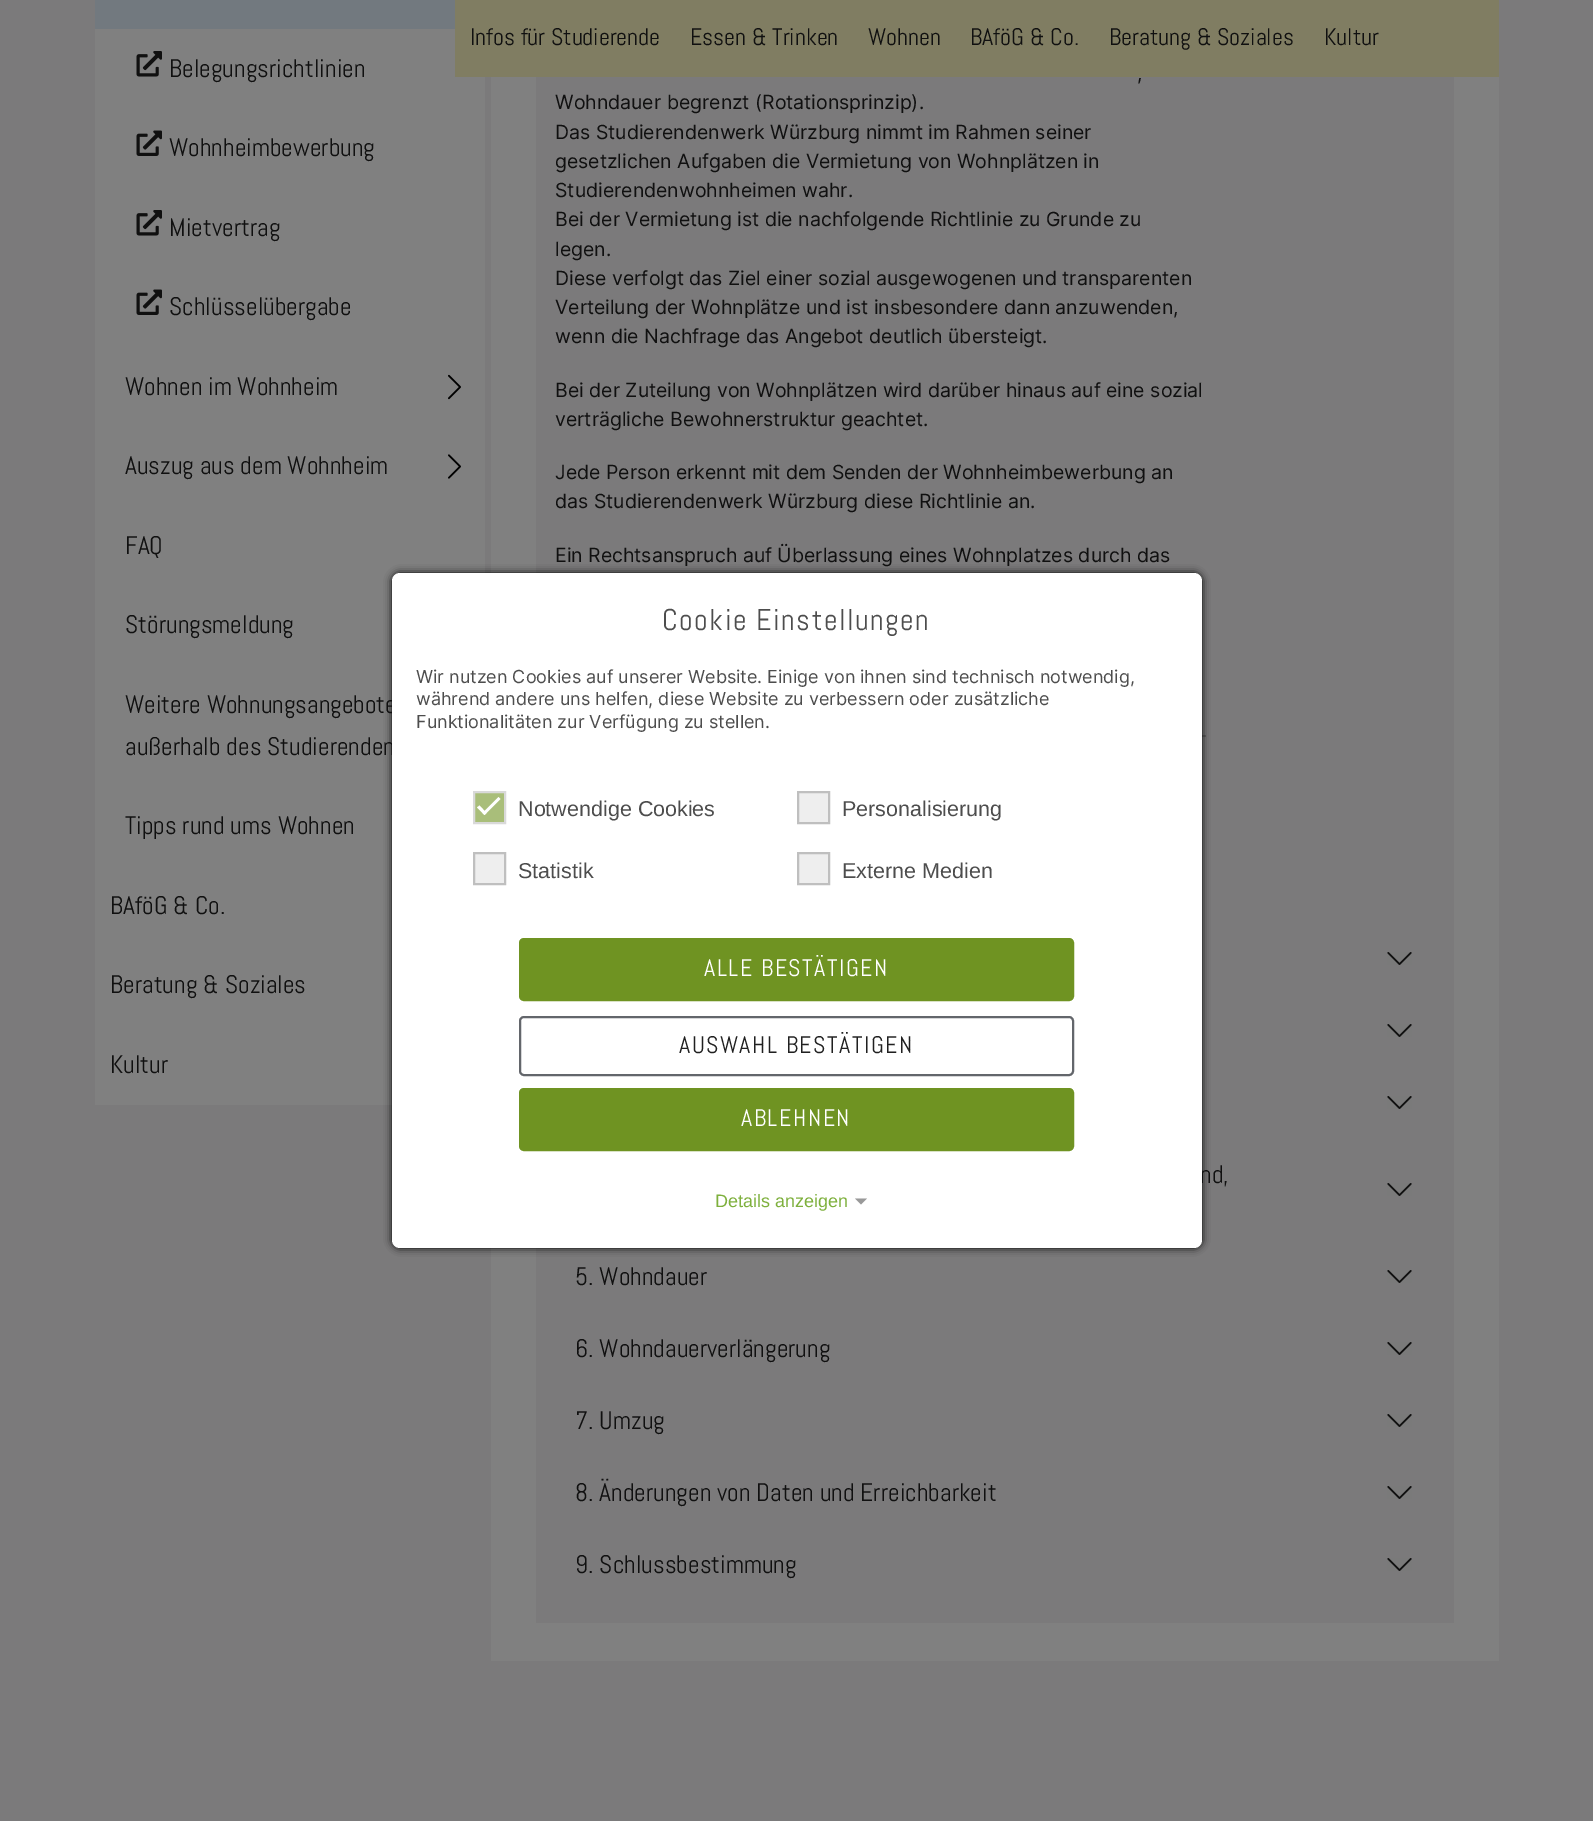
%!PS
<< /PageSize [1593 1821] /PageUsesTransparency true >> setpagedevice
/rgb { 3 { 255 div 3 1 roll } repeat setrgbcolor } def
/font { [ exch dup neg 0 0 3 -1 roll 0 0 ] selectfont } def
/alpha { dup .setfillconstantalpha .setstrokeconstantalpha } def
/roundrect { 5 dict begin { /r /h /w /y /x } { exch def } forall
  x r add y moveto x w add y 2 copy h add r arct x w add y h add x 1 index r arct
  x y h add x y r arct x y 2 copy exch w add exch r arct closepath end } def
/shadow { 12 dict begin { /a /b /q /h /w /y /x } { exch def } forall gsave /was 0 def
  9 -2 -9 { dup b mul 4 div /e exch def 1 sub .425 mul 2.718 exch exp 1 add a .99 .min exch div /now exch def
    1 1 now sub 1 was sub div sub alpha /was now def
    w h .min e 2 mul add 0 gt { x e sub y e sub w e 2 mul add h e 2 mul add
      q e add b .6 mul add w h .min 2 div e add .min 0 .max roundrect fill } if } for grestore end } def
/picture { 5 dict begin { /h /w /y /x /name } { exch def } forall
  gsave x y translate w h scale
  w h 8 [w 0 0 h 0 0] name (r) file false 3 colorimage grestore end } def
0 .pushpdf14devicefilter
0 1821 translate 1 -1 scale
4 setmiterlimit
123 122 123 rgb
0 0 1593 1821 rectfill
[
  [95 29 390 1074 128 128 128]
  [455 0 1044 77 128 125 98]
  [95 0 360 29 114 121 127]
] { aload pop rgb rectfill } forall
(img/1.rgb) 136 51 26 26 picture
(img/2.rgb) 136 130 26 26 picture
(img/1.rgb) 136 210 26 26 picture
(img/2.rgb) 136 289 26 26 picture
(img/3.rgb) 448 374 13 26 picture
(img/4.rgb) 448 454 13 25 picture
[
  [95 1103 297 2 128 128 128]
  [491 77 1008 1584 128 128 128]
  [536 77 918 1546 123 122 123]
  [1202 735 4 2 96 96 96]
] { aload pop rgb rectfill } forall
(img/5.rgb) 1387 952 25 13 picture
(img/5.rgb) 1387 1024 25 13 picture
(img/5.rgb) 1387 1096 25 13 picture
(img/5.rgb) 1387 1183 25 13 picture
(img/5.rgb) 1387 1270 25 13 picture
(img/5.rgb) 1387 1342 25 13 picture
(img/5.rgb) 1387 1414 25 13 picture
(img/5.rgb) 1387 1486 25 13 picture
(img/5.rgb) 1387 1558 25 13 picture
0 0 0 rgb
392 573 810 675 8 4 1 shadow
/Abel-Regular 24 font
16 16 16 rgb
[
  [(Infos für Studierende) 470 45]
  [(Essen & Trinken) 690 45]
  [(Wohnen) 868 45]
  [(BAföG & Co.) 970 45]
  [(Beratung & Soziales) 1109 45]
  [(Kultur) 1324 45]
] { aload pop moveto show } forall
/Abel-Regular 25.5 font
[
  [(Belegungsrichtlinien) 169 77]
  [(Wohnheimbewerbung) 169 156]
  [(Mietvertrag) 169 236]
  [(Schlüsselübergabe) 169 315]
  [(Wohnen im Wohnheim) 125 395]
  [(Auszug aus dem Wohnheim) 125 474]
  [(FAQ) 125 554]
  [(Störungsmeldung) 125 633]
  [(Weitere Wohnungsangebote) 125 713]
  [(außerhalb des Studierenden) 125 755]
  [(Tipps rund ums Wohnen) 125 834]
  [(BAföG & Co.) 110 914]
  [(Beratung & Soziales) 110 993]
  [(Kultur) 110 1073]
] { aload pop moveto show } forall
/Inter-Regular 19.5 font
[
  [(,) 1137 80]
  [(Wohndauer begrenzt \(Rotationsprinzip\).) 555 109]
  [(Das Studierendenwerk Würzburg nimmt im Rahmen seiner) 555 139]
  [(gesetzlichen Aufgaben die Vermietung von Wohnplätzen in) 555 168]
  [(Studierendenwohnheimen wahr.) 555 197]
  [(Bei der Vermietung ist die nachfolgende Richtlinie zu Grunde zu) 555 226]
  [(legen.) 555 256]
  [(Diese verfolgt das Ziel einer sozial ausgewogenen und transparenten) 555 285]
  [(Verteilung der Wohnplätze und ist insbesondere dann anzuwenden,) 555 314]
  [(wenn die Nachfrage das Angebot deutlich übersteigt.) 555 343]
  [(Bei der Zuteilung von Wohnplätzen wird darüber hinaus auf eine sozial) 555 397]
  [(verträgliche Bewohnerstruktur geachtet.) 555 426]
  [(Jede Person erkennt mit dem Senden der Wohnheimbewerbung an) 555 479]
  [(das Studierendenwerk Würzburg diese Richtlinie an.) 555 508]
  [(Ein Rechtsanspruch auf Überlassung eines Wohnplatzes durch das) 555 562]
] { aload pop moveto show } forall
/Abel-Regular 25.5 font
[
  [(nd,) 1200 1183]
  [(5. Wohndauer) 575 1285]
  [(6. Wohndauerverlängerung) 575 1357]
  [(7. Umzug) 575 1429]
  [(8. Änderungen von Daten und Erreichbarkeit) 575 1501]
  [(9. Schlussbestimmung) 575 1573]
] { aload pop moveto show } forall
255 255 255 rgb
392 573 810 675 8 roundrect fill
/Abel-Regular 30 font
77 77 77 rgb
662 630 moveto 1.5 0 (Cookie Einstellungen) ashow
/Inter-Regular 18 font
[
  [(Wir nutzen Cookies auf unserer Website. Einige von ihnen sind technisch notwendig,) 416 683]
  [(während andere uns helfen, diese Website zu verbessern oder zusätzliche) 416 705]
  [(Funktionalitäten zur Verfügung zu stellen.) 416 728]
] { aload pop moveto show } forall
169 190 122 rgb
474 792 moveto 505 792 lineto 505 823 lineto 474 823 lineto closepath gsave fill grestore
217 217 217 rgb
2 setlinewidth
stroke
255 255 255 rgb
498.5 797 moveto 500.5 799 lineto 484.5 815 lineto 482.5 813 lineto closepath fill
479.5 805.5 moveto 486.5 813 lineto 484.5 815 lineto 477 807.5 lineto closepath fill
/LiberationSans-Regular 21.5 font
77 77 77 rgb
518 816 moveto (Notwendige Cookies) show
238 238 238 rgb
798 792 moveto 829 792 lineto 829 823 lineto 798 823 lineto closepath gsave fill grestore
191 191 191 rgb
stroke
77 77 77 rgb
842 816 moveto (Personalisierung) show
238 238 238 rgb
474 853 moveto 505 853 lineto 505 884 lineto 474 884 lineto closepath gsave fill grestore
191 191 191 rgb
stroke
77 77 77 rgb
518 878 moveto (Statistik) show
238 238 238 rgb
798 853 moveto 829 853 lineto 829 884 lineto 798 884 lineto closepath gsave fill grestore
191 191 191 rgb
stroke
77 77 77 rgb
842 878 moveto (Externe Medien) show
111 147 34 rgb
520.5 939.5 552 60 3.5 roundrect gsave fill grestore
3 setlinewidth
stroke
/Abel-Regular 24 font
255 255 255 rgb
704 976 moveto 1.5 0 (ALLE BESTÄTIGEN) ashow
99 102 107 rgb
2 setlinewidth
520 1017 553 58 4 roundrect stroke
32 32 32 rgb
679 1053 moveto 1.5 0 (AUSWAHL BESTÄTIGEN) ashow
111 147 34 rgb
520.5 1089.5 552 60 3.5 roundrect gsave fill grestore
3 setlinewidth
stroke
255 255 255 rgb
741 1126 moveto 1.5 0 (ABLEHNEN) ashow
/LiberationSans-Regular 18 font
126 176 61 rgb
715 1207 moveto (Details anzeigen) show
153 153 153 rgb
855 1198.5 moveto 867 1198.5 lineto 861 1204.5 lineto closepath fill
.poppdf14devicefilter showpage
